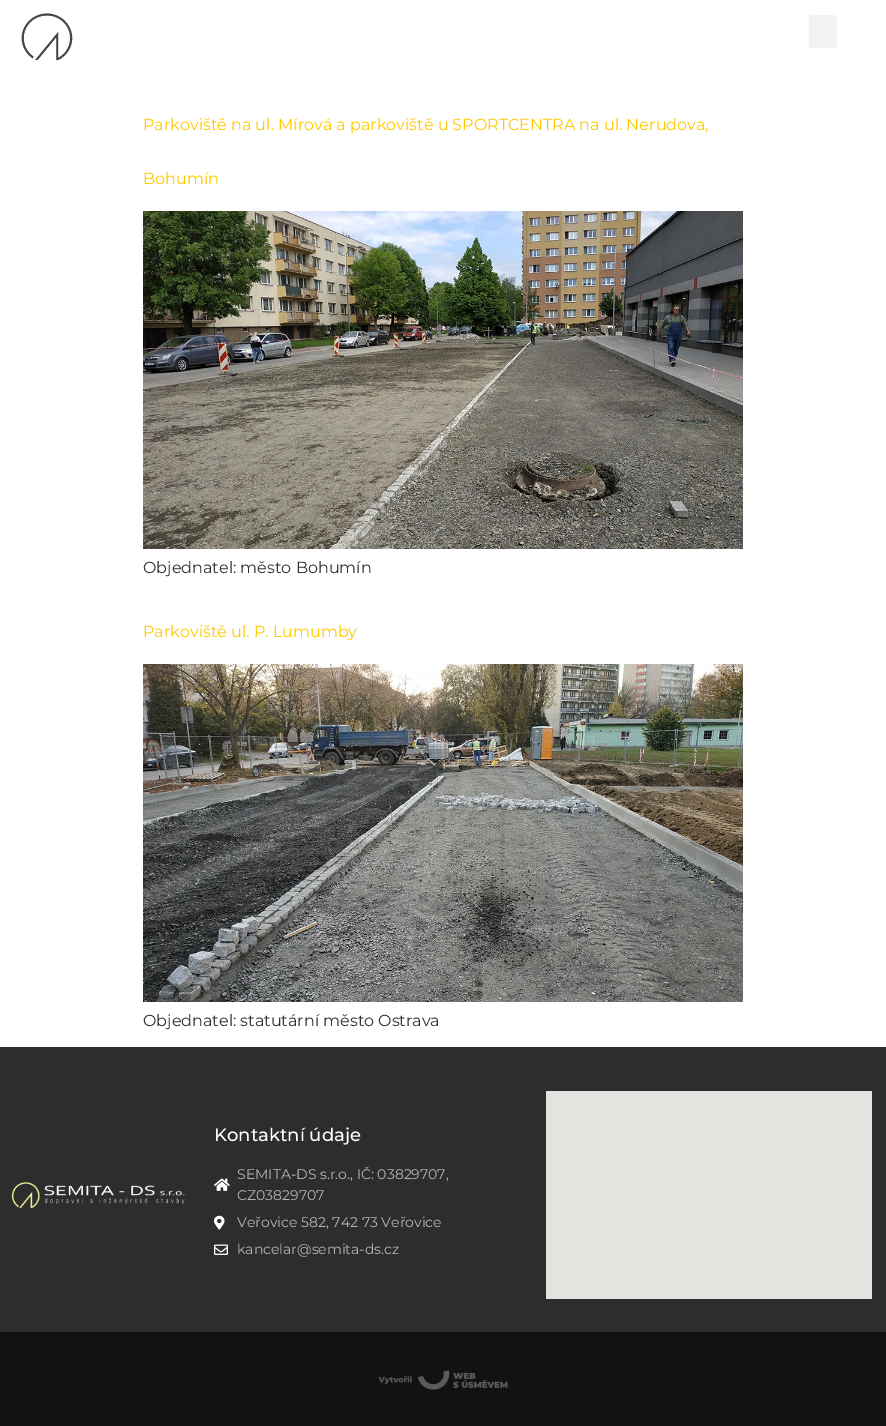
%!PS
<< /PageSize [886 1426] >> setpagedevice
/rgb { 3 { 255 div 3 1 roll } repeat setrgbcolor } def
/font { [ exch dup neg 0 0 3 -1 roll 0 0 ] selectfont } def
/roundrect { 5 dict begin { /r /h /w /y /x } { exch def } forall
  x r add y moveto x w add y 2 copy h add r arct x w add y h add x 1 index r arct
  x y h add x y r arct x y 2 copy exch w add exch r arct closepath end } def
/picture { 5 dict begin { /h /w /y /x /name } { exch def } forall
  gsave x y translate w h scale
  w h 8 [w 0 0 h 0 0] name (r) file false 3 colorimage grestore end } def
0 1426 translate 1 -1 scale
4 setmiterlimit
255 255 255 rgb
0 0 886 1426 rectfill
(img/1.rgb) 21 13 52 48 picture
242 242 242 rgb
809 15 28 33 3 roundrect fill
(img/2.rgb) 143 211 600 338 picture
(img/3.rgb) 143 664 600 338 picture
45 45 45 rgb
0 1047 886 285 rectfill
(img/4.rgb) 11 1182 174 27 picture
(img/5.rgb) 214 1178 16 13 picture
(img/6.rgb) 214 1215 11 15 picture
(img/7.rgb) 214 1244 14 11 picture
229 227 223 rgb
546 1091 326 208 rectfill
18 18 18 rgb
0 1332 886 94 rectfill
(img/8.rgb) 378 1370 130 20 picture
/Montserrat-Regular 16 font
255 203 2 rgb
143 130 moveto (Parkoviště na ul. Mírová a parkoviště u SPORTCENTRA na ul. Nerudova,) show
143 184 moveto (Bohumín) show
51 51 51 rgb
143 573 moveto (Objednatel: město Bohumín) show
255 203 2 rgb
143 637 moveto (Parkoviště ul. P. Lumumby) show
51 51 51 rgb
143 1026 moveto (Objednatel: statutární město Ostrava) show
/Montserrat-Medium 18 font
255 255 255 rgb
214 1141 moveto (Kontaktní údaje) show
/Montserrat-Regular 14 font
182 182 182 rgb
[
  [(SEMITA-DS s.r.o., IČ: 03829707,) 237 1179]
  [(CZ03829707) 237 1200]
  [(Veřovice 582, 742 73 Veřovice) 237 1227]
  [(kancelar@semita-ds.cz) 237 1254]
] { aload pop moveto show } forall
showpage
